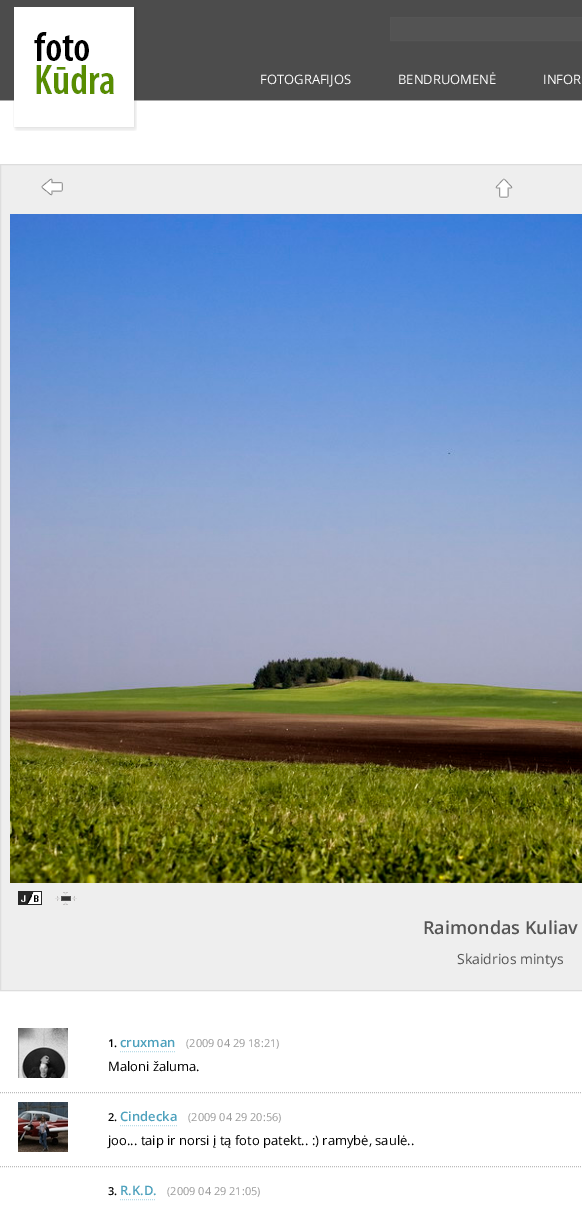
%!PS
<< /PageSize [582 1210] >> setpagedevice
/rgb { 3 { 255 div 3 1 roll } repeat setrgbcolor } def
/font { [ exch dup neg 0 0 3 -1 roll 0 0 ] selectfont } def
/picture { 5 dict begin { /h /w /y /x /name } { exch def } forall
  gsave x y translate w h scale
  w h 8 [w 0 0 h 0 0] name (r) file false 3 colorimage grestore end } def
0 1210 translate 1 -1 scale
4 setmiterlimit
255 255 255 rgb
0 0 582 1210 rectfill
76 76 76 rgb
0 0 582 100 rectfill
83 83 83 rgb
390.5 17.5 moveto 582.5 17.5 lineto 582.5 40.5 lineto 390.5 40.5 lineto closepath gsave fill grestore
85 85 85 rgb
stroke
170 170 170 rgb
0 100 582 1 rectfill
(img/1.rgb) 13 7 124 124 picture
238 238 238 rgb
0.5 164.5 moveto 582.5 164.5 lineto 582.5 990.5 lineto 0.5 990.5 lineto closepath gsave fill grestore
221 221 221 rgb
stroke
(img/2.rgb) 41 178 22 18 picture
(img/3.rgb) 495 178 18 21 picture
(img/4.rgb) 10 214 572 669 picture
(img/5.rgb) 18 891 24 14 picture
(img/6.rgb) 55 892 22 13 picture
(img/7.rgb) 18 1028 50 50 picture
187 221 232 rgb
[1 1] 0 setdash
120 1051.5 moveto 175 1051.5 lineto stroke
187 187 187 rgb
0 1092.5 moveto 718 1092.5 lineto stroke
(img/8.rgb) 18 1102 50 50 picture
187 221 232 rgb
120 1125.5 moveto 177 1125.5 lineto stroke
187 187 187 rgb
0 1166.5 moveto 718 1166.5 lineto stroke
187 221 232 rgb
120 1199.5 moveto 156 1199.5 lineto stroke
/OpenSans-Regular 13 font
255 255 255 rgb
[
  [(FOTOGRAFIJOS) 260 84]
  [(BENDRUOMENĖ) 398 84]
  [(INFOR) 543 84]
] { aload pop moveto show } forall
/OpenSans-SemiBold 18 font
85 85 85 rgb
423 934 moveto (Raimondas Kuliav) show
/OpenSans-Regular 14 font
457 964 moveto (Skaidrios mintys) show
/OpenSans-SemiBold 11 font
0 0 0 rgb
108 1047 moveto (1.) show
/OpenSans-SemiBold 13 font
77 161 189 rgb
120 1047 moveto (cruxman) show
/OpenSans-Regular 11 font
153 153 153 rgb
186 1047 moveto (\(2009 04 29 18:21\)) show
/OpenSans-Regular 13 font
0 0 0 rgb
108 1071 moveto (Maloni žaluma.) show
/OpenSans-SemiBold 11 font
108 1121 moveto (2.) show
/OpenSans-SemiBold 13 font
77 161 189 rgb
120 1121 moveto (Cindecka) show
/OpenSans-Regular 11 font
153 153 153 rgb
188 1121 moveto (\(2009 04 29 20:56\)) show
/OpenSans-Regular 13 font
0 0 0 rgb
108 1145 moveto (joo... taip ir norsi į tą foto patekt.. :\) ramybė, saulė..) show
/OpenSans-SemiBold 11 font
108 1195 moveto (3.) show
/OpenSans-SemiBold 13 font
77 161 189 rgb
120 1195 moveto (R.K.D.) show
/OpenSans-Regular 11 font
153 153 153 rgb
167 1195 moveto (\(2009 04 29 21:05\)) show
showpage
